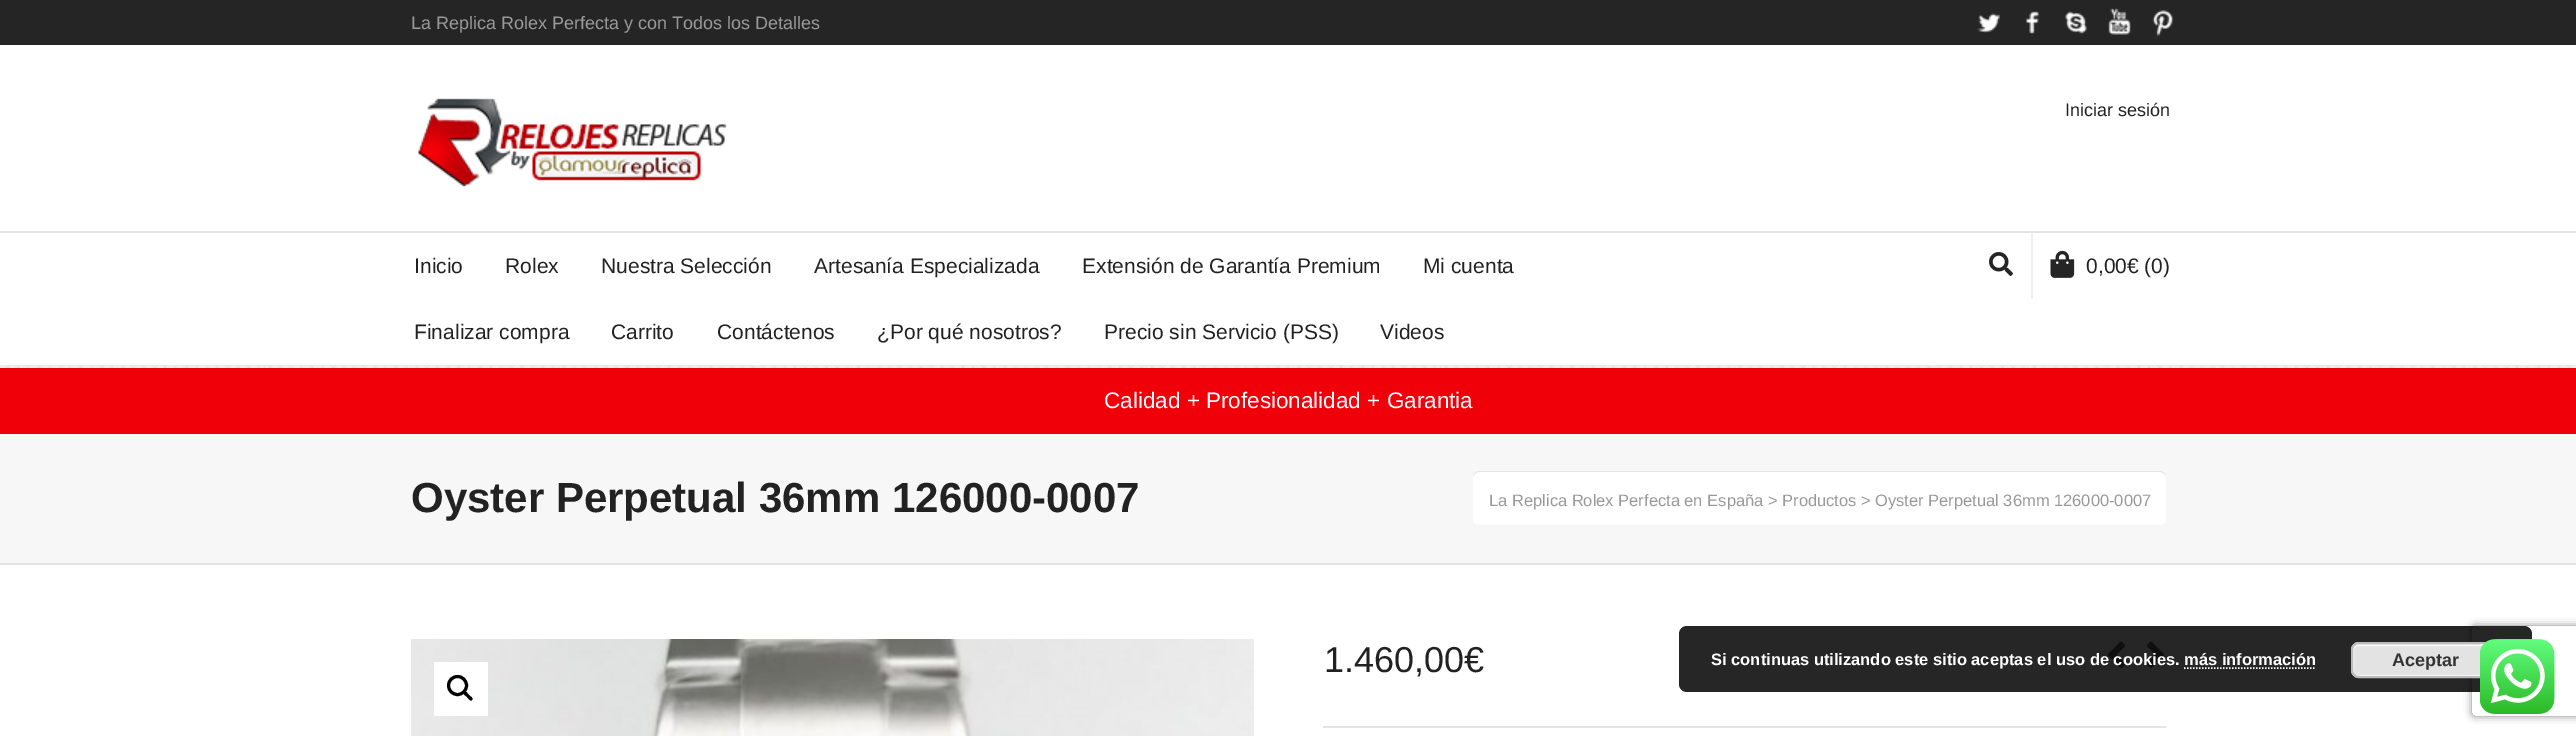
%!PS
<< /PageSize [2576 736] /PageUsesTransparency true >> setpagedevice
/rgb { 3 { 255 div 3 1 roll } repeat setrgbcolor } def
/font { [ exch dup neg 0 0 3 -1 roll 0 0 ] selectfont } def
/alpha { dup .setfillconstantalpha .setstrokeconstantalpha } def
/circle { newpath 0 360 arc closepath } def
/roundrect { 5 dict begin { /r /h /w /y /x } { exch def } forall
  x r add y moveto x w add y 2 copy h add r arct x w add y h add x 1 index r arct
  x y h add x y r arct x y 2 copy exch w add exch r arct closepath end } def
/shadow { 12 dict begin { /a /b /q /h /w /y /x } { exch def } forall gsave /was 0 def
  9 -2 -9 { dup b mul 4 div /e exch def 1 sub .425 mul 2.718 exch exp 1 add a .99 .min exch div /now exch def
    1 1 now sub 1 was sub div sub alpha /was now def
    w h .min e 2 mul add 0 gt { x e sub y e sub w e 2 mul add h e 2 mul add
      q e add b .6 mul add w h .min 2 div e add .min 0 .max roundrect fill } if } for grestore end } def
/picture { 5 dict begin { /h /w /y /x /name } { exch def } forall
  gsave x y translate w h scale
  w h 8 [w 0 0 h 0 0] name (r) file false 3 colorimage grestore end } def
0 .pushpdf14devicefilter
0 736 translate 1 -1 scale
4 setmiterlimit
255 255 255 rgb
0 0 2576 736 rectfill
(img/1.rgb) 0 365 2576 3 picture
240 0 8 rgb
0 368 2576 66 rectfill
0 0 0 rgb
0 50 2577 319 0 4 0.05 shadow
37 37 37 rgb
0 0 2576 45 rectfill
(img/2.rgb) 1977 13 23 20 picture
(img/3.rgb) 2026 11 13 23 picture
(img/4.rgb) 2065 11 22 23 picture
(img/5.rgb) 2108 8 23 27 picture
(img/6.rgb) 2152 10 22 27 picture
255 255 255 rgb
0 47 2576 318 rectfill
(img/7.rgb) 418 98 309 89 picture
228 228 228 rgb
0 231 2576 2 rectfill
(img/8.rgb) 1989 252 24 24 picture
240 240 240 rgb
2031 233 2 66 rectfill
(img/9.rgb) 2050 250 25 28 picture
247 247 247 rgb
0 434 2576 129 rectfill
228 228 228 rgb
0 563 2576 2 rectfill
255 255 255 rgb
1473 471 693 54 6 roundrect fill
229 229 229 rgb
1479 472 moveto 2160 472 lineto 2163 472 2166 475 2166 478 curveto 2166 477 lineto 2166 474 2163 471 2160 471 curveto 1479 471 lineto 1476 471 1473 474 1473 477 curveto 1473 478 lineto 1473 475 1476 472 1479 472 curveto closepath fill
(img/10.rgb) 411 639 843 97 picture
255 255 255 rgb
434 662 54 54 rectfill
0 0 0 rgb
3 setlinewidth
457.5 685.5 9 circle stroke
464 692 moveto 465.5 690 468 694 469 695 curveto 470 696 474 698.5 472 700 curveto 470.5 702 468 698 467 697 curveto 466 696 462 693.5 464 692 curveto closepath fill
228 228 228 rgb
1323 726 843 2 rectfill
(img/11.rgb) 2108 641 17 27 picture
(img/12.rgb) 2147 641 17 27 picture
gsave
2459 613 moveto 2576 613 lineto 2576 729 lineto 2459 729 lineto closepath 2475 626 moveto 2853 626 lineto 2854.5 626 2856 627.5 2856 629 curveto 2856 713 lineto 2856 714.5 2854.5 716 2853 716 curveto 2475 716 lineto 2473.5 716 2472 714.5 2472 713 curveto 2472 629 lineto 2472 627.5 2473.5 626 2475 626 curveto closepath eoclip newpath
128 128 128 rgb
2472 626 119 90 3 4 1 shadow
grestore
0.85 alpha
0 0 0 rgb
1679 626 853 66 8 roundrect fill
1 alpha
227 227 227 rgb
2351 642 150 36 8 roundrect fill
246 246 246 rgb
2 setlinewidth
2353 645 145 31 5 roundrect stroke
187 187 187 rgb
2352 643 148 34 7 roundrect stroke
255 255 255 rgb
1.5 setlinewidth
[1.5 1.5] 0 setdash
2184 668 moveto 2316 668 lineto stroke
(img/13.rgb) 2480 639 75 75 picture
/LiberationSans-Regular 18 font
153 153 153 rgb
411 29 moveto (La Replica Rolex Perfecta y con Todos los Detalles) show
34 34 34 rgb
2065 116 moveto (Iniciar sesión) show
/LiberationSans-Regular 21 font
[
  [(Inicio) 414 273]
  [(Rolex) 505 273]
  [(Nuestra Selección) 601 273]
  [(Artesanía Especializada) 814 273]
  [(Extensión de Garantía Premium) 1082 273]
  [(Mi cuenta) 1423 273]
  [(Finalizar compra) 414 339]
  [(Carrito) 611 339]
  [(Contáctenos) 717 339]
  [(¿Por qué nosotros?) 877 339]
  [(Precio sin Servicio \(PSS\)) 1104 339]
  [(Videos) 1380 339]
  [(0,00€ \(0\)) 2086 273]
] { aload pop moveto show } forall
/LiberationSans-Regular 22.5 font
255 255 255 rgb
1104 408 moveto (Calidad + Profesionalidad + Garantia) show
/LiberationSans-Bold 42 font
34 34 34 rgb
411 512 moveto (Oyster Perpetual 36mm 126000-0007) show
/LiberationSans-Regular 16.5 font
153 153 153 rgb
1489 506 moveto (La Replica Rolex Perfecta en España > Productos > Oyster Perpetual 36mm 126000-0007) show
/LiberationSans-Regular 36 font
34 34 34 rgb
1324 672 moveto (1.460,00€) show
/LiberationSans-Bold 16.5 font
255 255 255 rgb
1711 665 moveto (Si continuas utilizando este sitio aceptas el uso de cookies. más información) show
/LiberationSans-Bold 18 font
51 51 51 rgb
2392 666 moveto (Aceptar) show
.poppdf14devicefilter showpage
